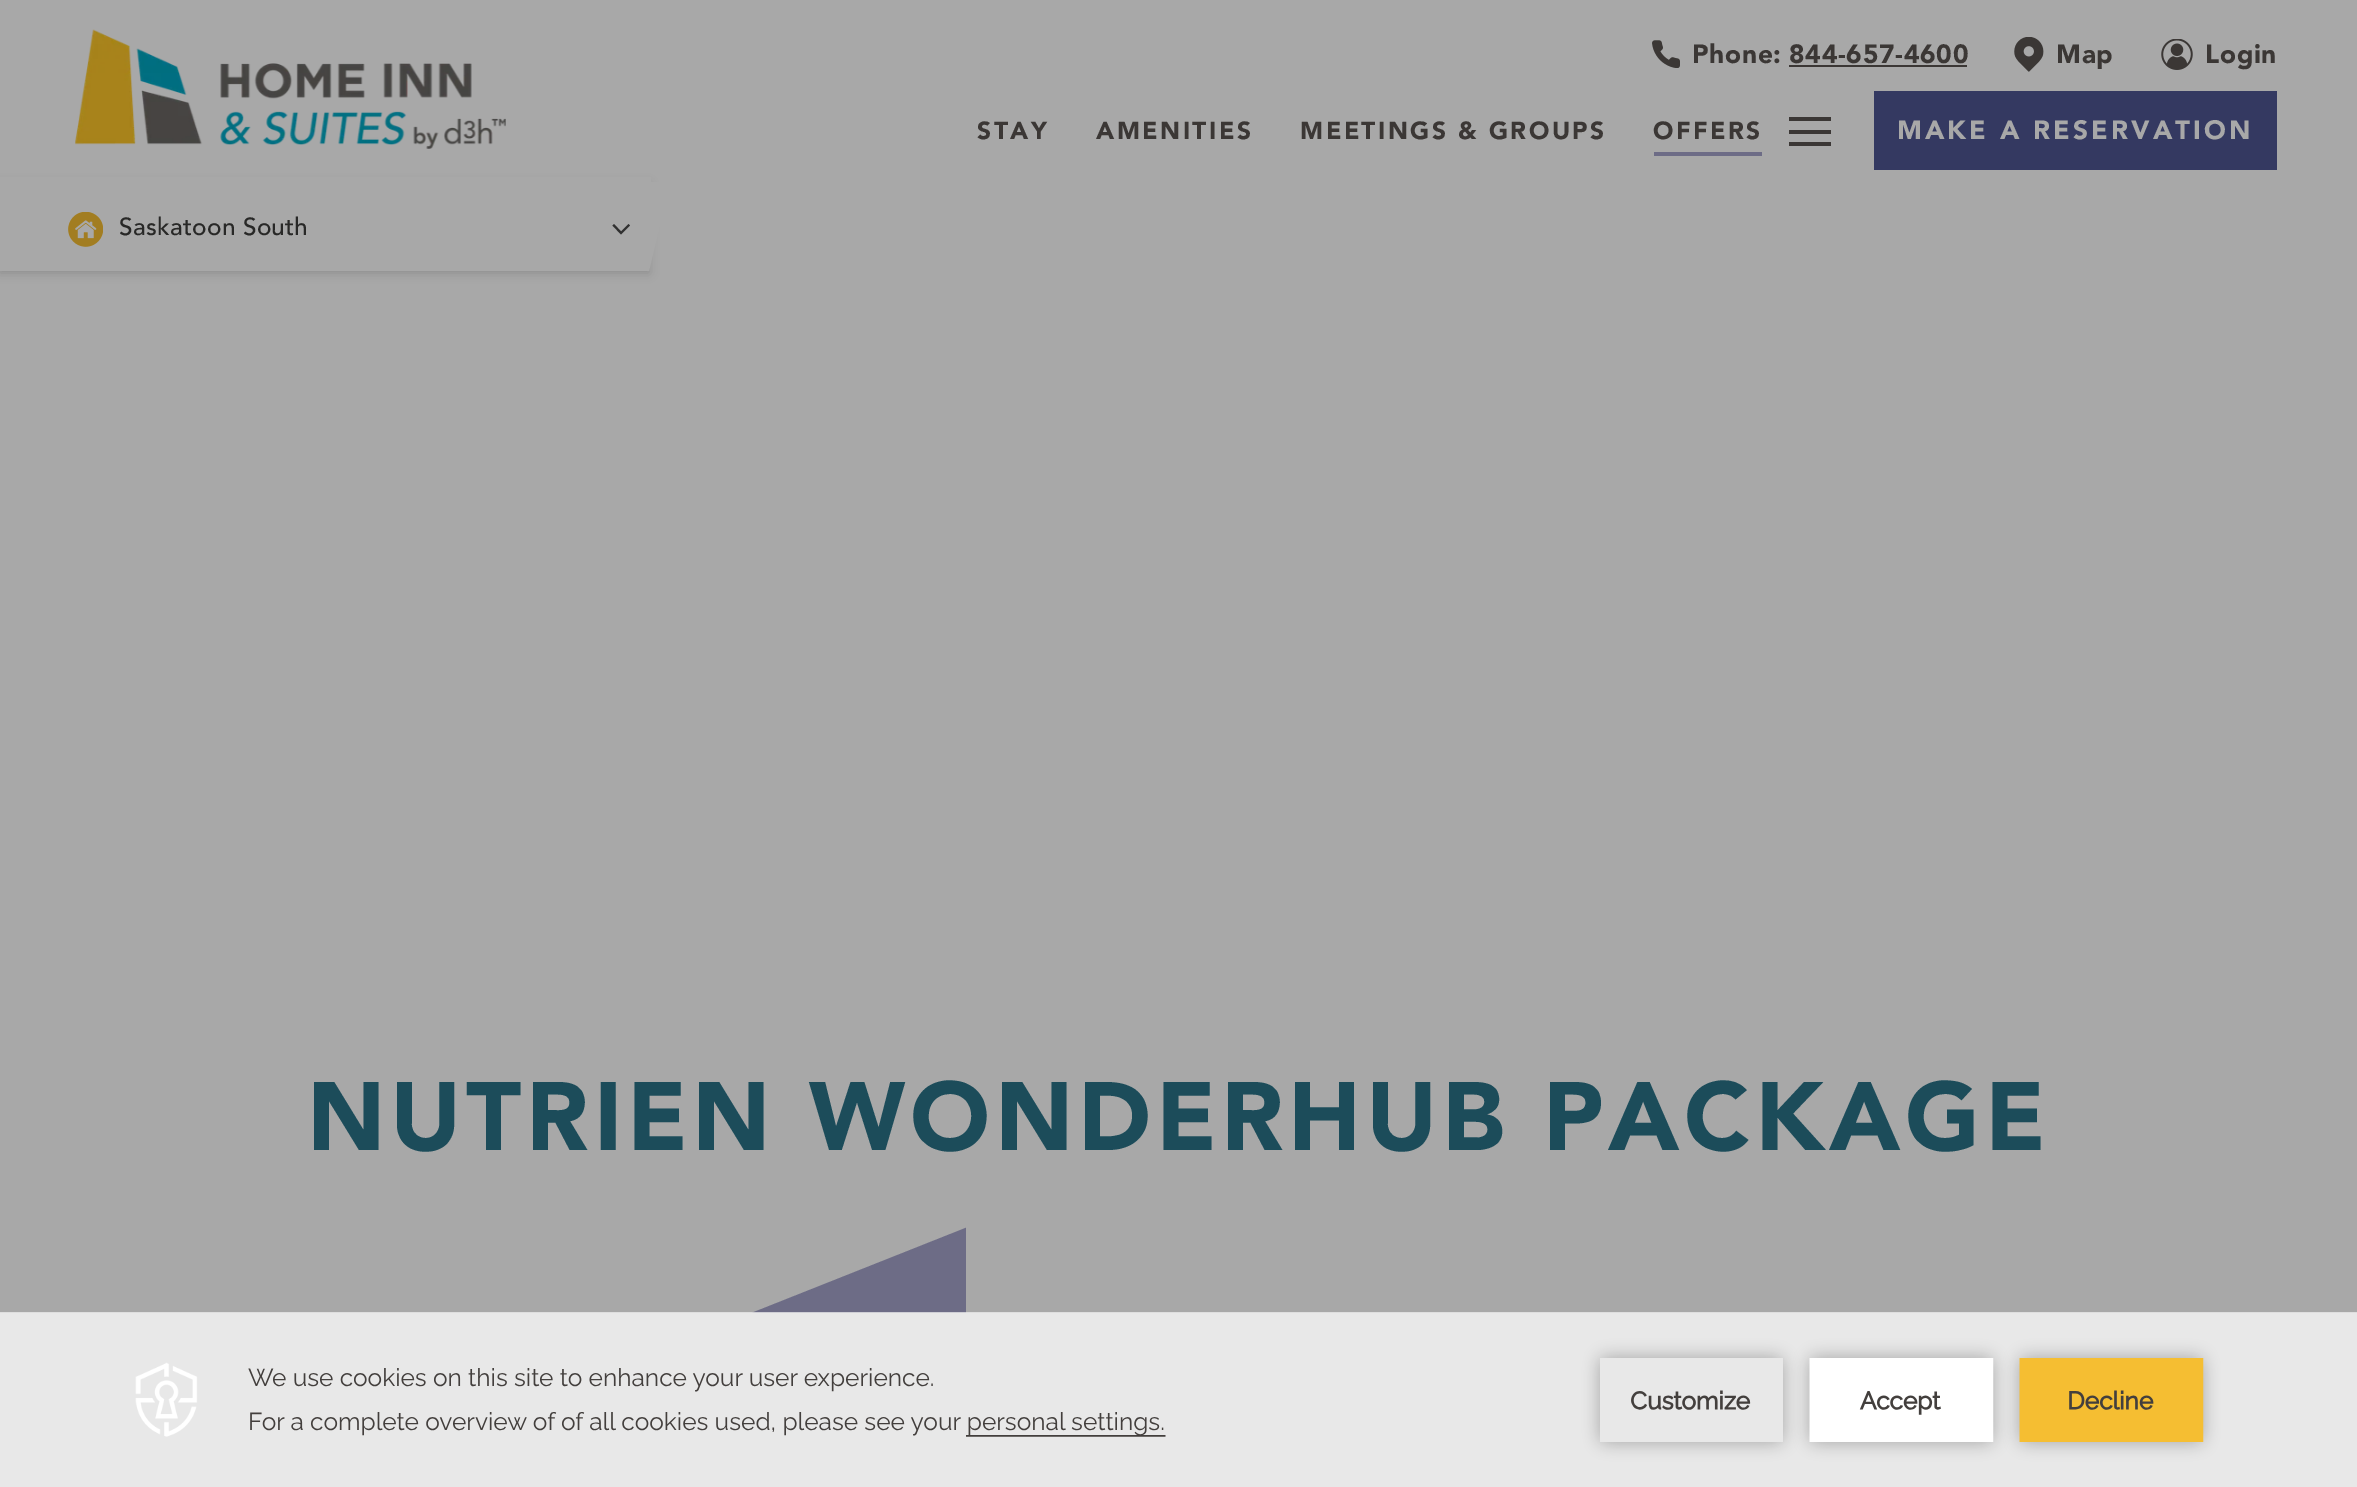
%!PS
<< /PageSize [2357 1487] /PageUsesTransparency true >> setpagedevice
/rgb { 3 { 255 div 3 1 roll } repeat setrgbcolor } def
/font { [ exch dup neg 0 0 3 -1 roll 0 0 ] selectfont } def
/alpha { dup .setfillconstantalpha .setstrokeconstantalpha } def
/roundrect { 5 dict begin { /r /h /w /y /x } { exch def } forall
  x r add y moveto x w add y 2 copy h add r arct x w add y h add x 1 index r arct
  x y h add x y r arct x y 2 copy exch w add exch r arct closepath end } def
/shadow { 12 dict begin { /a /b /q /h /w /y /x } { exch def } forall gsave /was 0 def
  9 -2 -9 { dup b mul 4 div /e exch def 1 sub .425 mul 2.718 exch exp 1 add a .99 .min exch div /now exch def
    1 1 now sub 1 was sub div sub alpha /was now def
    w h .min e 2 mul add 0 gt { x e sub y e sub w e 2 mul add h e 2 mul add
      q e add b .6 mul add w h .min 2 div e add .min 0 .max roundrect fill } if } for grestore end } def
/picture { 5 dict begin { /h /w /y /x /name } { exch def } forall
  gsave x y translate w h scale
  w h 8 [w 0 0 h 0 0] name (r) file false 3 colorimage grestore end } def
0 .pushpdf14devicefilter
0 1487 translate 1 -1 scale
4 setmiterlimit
168 168 168 rgb
0 0 2357 1487 rectfill
gsave
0 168 moveto 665 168 lineto 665 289 lineto 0 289 lineto closepath 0 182 moveto 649 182 lineto 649 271 lineto 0 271 lineto closepath eoclip newpath
0 0 0 rgb
0 184 649 89 0 5 0.16 shadow
grestore
0 177 651 5 rectfill
(img/1.rgb) 75 29 431 120 picture
(img/2.rgb) 1652 40 28 28 picture
59 55 53 rgb
1789 65 178 2 rectfill
(img/3.rgb) 2014 37 30 35 picture
(img/4.rgb) 2161 39 32 31 picture
[
  [1654 152 108 4 109 108 134]
  [1789 117 42 4 59 55 53]
  [1789 130 42 4 59 55 53]
  [1789 142 42 4 59 55 53]
  [1874 91 403 79 52 57 97]
] { aload pop rgb rectfill } forall
(img/5.rgb) 68 212 35 35 picture
168 168 168 rgb
581 182 moveto 670 182 lineto 649 271 lineto 560 271 lineto closepath fill
48 48 48 rgb
612.5 225.5 moveto 614 224 lineto 621 231.5 lineto 628.5 224 lineto 630 225.5 lineto 621 234.5 lineto closepath fill
gsave
0 1227 966 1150 rectclip
109 108 134 rgb
968 1227 moveto 1 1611 lineto 1 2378 lineto 968 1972 lineto closepath fill
grestore
(img/6.rgb) 0 1312 2357 175 picture
/Avenir-Black 26.25 font
59 55 53 rgb
1692 63 moveto 0.75 0 (Phone:) ashow
1789 63 moveto 0.75 0 (844-657-4600) ashow
2056 63 moveto 0.75 0 (Map) ashow
2205 63 moveto 0.75 0 (Login) ashow
/Avenir-Black 24.5 font
977 139 moveto 2.5 0 (STAY) ashow
1096 139 moveto 2.5 0 (AMENITIES) ashow
1300 139 moveto 2.5 0 (MEETINGS & GROUPS) ashow
1653 139 moveto 2.5 0 (OFFERS) ashow
/Avenir-Black 26.25 font
168 168 168 rgb
1897 139 moveto 3.1 0 (MAKE A RESERVATION) ashow
/Avenir-Medium 24.5 font
40 40 39 rgb
119 235 moveto 0.25 0 (Saskatoon South) ashow
/Avenir-Black 96.25 font
28 76 90 rgb
307 1150 moveto 4.8 0 (NUTRIEN WONDERHUB PACKAGE) ashow
.poppdf14devicefilter showpage
